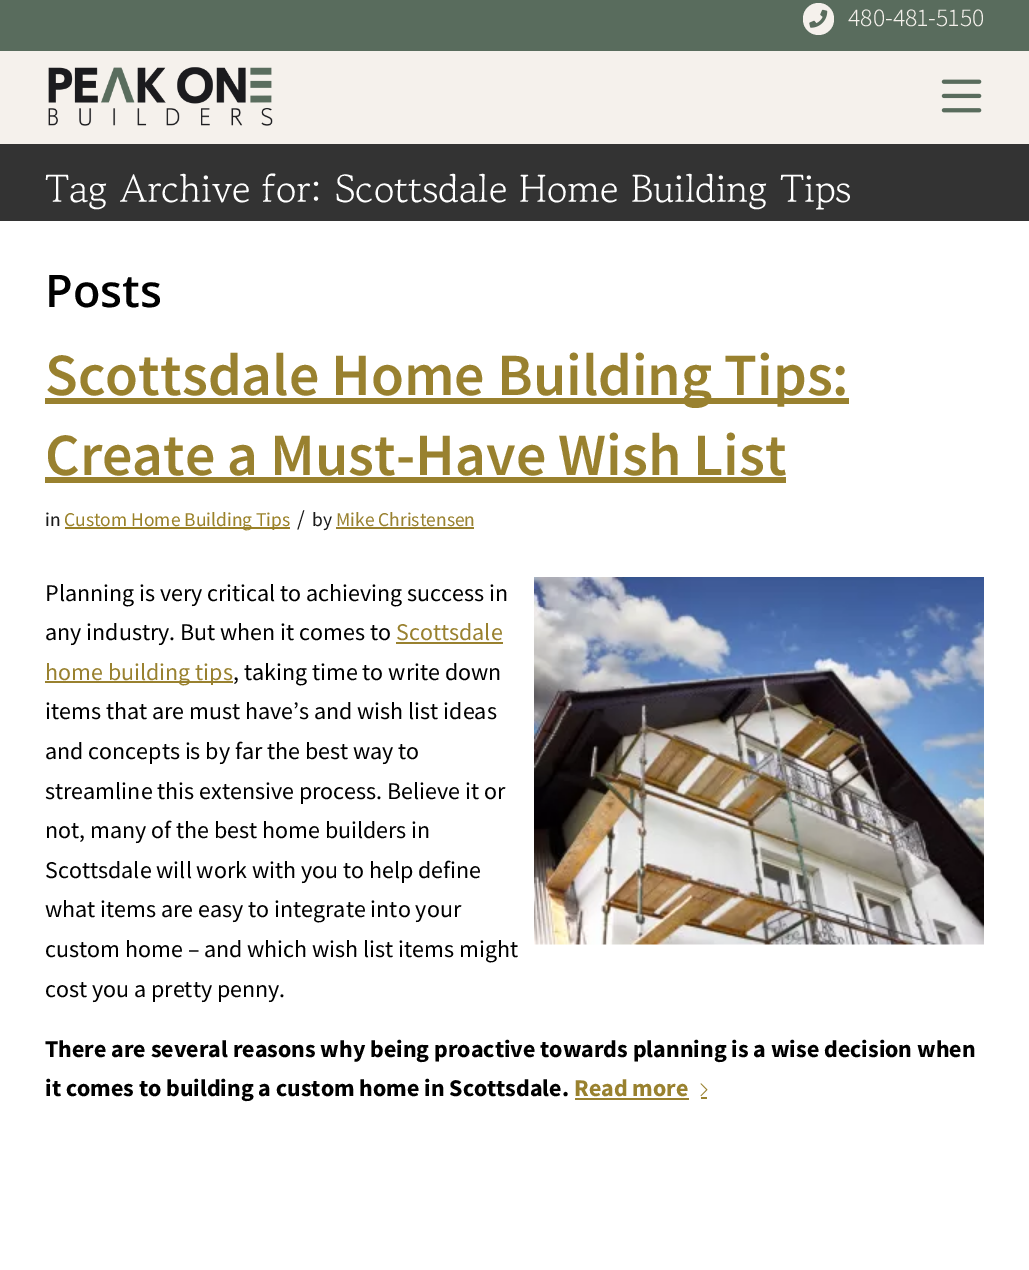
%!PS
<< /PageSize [1029 1270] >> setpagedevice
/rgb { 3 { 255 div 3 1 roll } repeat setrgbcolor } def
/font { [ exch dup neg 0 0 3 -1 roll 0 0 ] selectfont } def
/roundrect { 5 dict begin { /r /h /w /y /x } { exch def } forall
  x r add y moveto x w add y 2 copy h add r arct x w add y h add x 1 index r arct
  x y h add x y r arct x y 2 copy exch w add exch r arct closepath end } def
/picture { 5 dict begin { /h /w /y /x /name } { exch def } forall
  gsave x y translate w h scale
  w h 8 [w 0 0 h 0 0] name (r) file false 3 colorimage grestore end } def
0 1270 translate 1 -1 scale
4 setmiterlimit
51 51 51 rgb
0 0 1029 1270 rectfill
89 108 93 rgb
0 0 1029 51 rectfill
245 241 236 rgb
803 3 31 32 15.5 roundrect fill
(img/1.rgb) 809 9 19 19 picture
0 51 1029 93 rectfill
(img/2.rgb) 48 67 225 59 picture
(img/3.rgb) 941 79 41 34 picture
[
  [0 221 1029 1049 255 255 255]
  [45 398 804 6 153 129 47]
  [45 477 741 6 153 129 47]
  [65 527 225 2 154 129 40]
  [336 527 138 2 153 129 47]
] { aload pop rgb rectfill } forall
(img/4.rgb) 534 577 450 368 picture
[
  [396 642 107 2 153 129 47]
  [45 681 188 2 153 129 47]
  [575 1098 114 2 153 129 47]
] { aload pop rgb rectfill } forall
(img/5.rgb) 700 1083 8 14 picture
701 1097 6 2 rectfill
/Assistant-Light 25.5 font
245 241 236 rgb
848 26 moveto (480-481-5150) show
/GowunBatang-Regular 39 font
255 255 255 rgb
45 205 moveto (Tag Archive for: Scottsdale Home Building Tips) show
/OpenSans-SemiBold 45 font
0 0 0 rgb
45 307 moveto (Posts) show
/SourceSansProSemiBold-SemiBold 60 font
153 129 47 rgb
45 395 moveto (Scottsdale Home Building Tips:) show
45 475 moveto (Create a Must-Have Wish List) show
/SourceSansPro-Regular 19.5 font
26 26 26 rgb
45 526 moveto (in) show
154 129 40 rgb
64 526 moveto (Custom Home Building Tips) show
/SourceSansPro-Regular 22 font
26 26 26 rgb
297 526 moveto (/) show
/SourceSansPro-Regular 19.5 font
312 526 moveto (by) show
153 129 47 rgb
336 526 moveto (Mike Christensen) show
/SourceSansPro-Regular 24 font
0 0 0 rgb
45 601 moveto (Planning is very critical to achieving success in) show
45 640 moveto (any industry. But when it comes to) show
153 129 47 rgb
396 640 moveto (Scottsdale) show
45 680 moveto (home building tips) show
0 0 0 rgb
[
  [(, taking time to write down) 233 680]
  [(items that are must have’s and wish list ideas) 45 719]
  [(and concepts is by far the best way to) 45 759]
  [(streamline this extensive process. Believe it or) 45 799]
  [(not, many of the best home builders in) 45 838]
  [(Scottsdale will work with you to help define) 45 878]
  [(what items are easy to integrate into your) 45 917]
  [(custom home – and which wish list items might) 45 957]
  [(cost you a pretty penny.) 45 997]
] { aload pop moveto show } forall
/SourceSansPro-Bold 24 font
45 1057 moveto (There are several reasons why being proactive towards planning is a wise decision when) show
45 1096 moveto (it comes to building a custom home in Scottsdale.) show
153 129 47 rgb
574 1096 moveto (Read more) show
showpage
